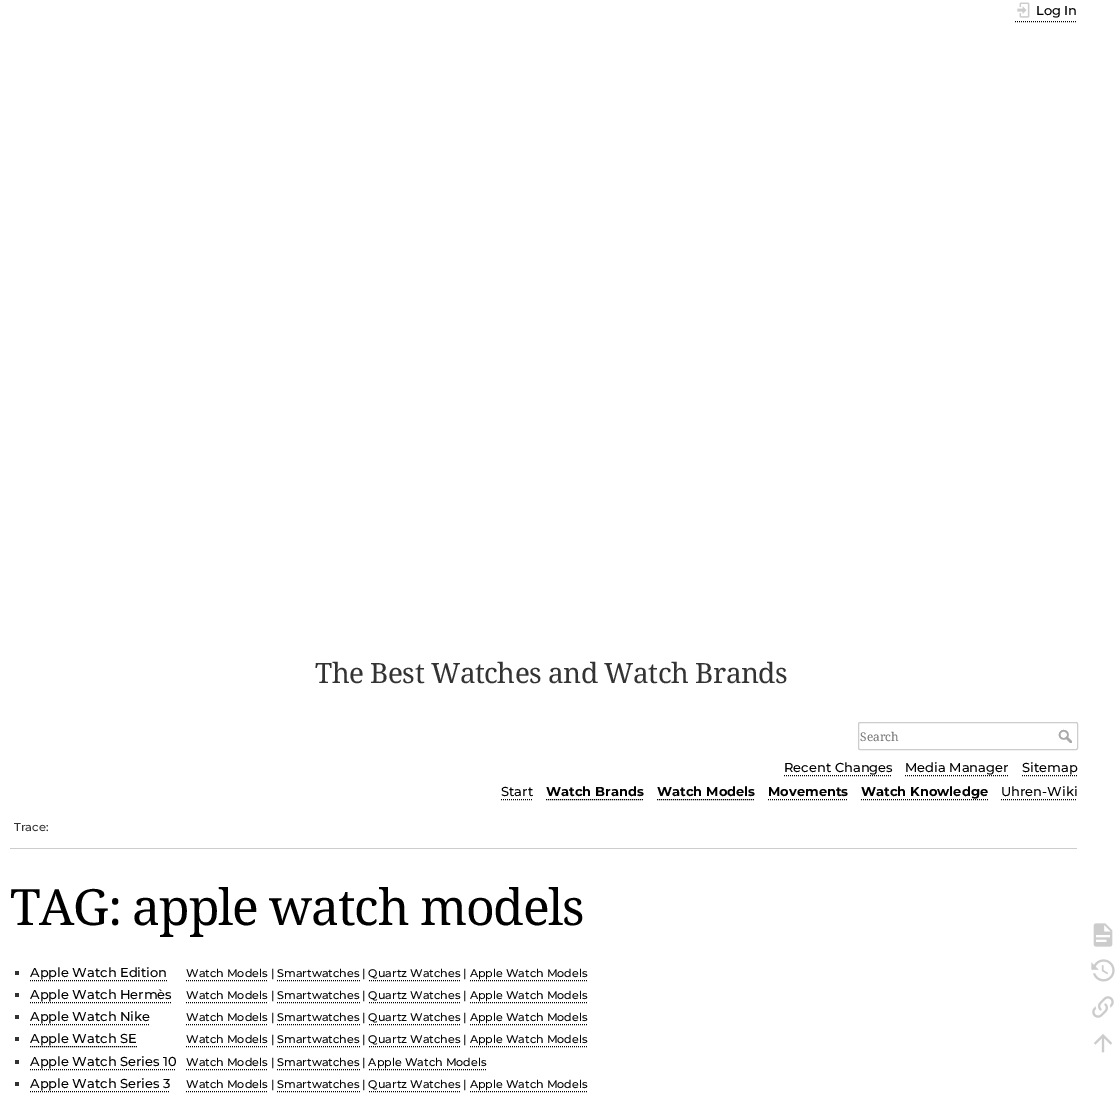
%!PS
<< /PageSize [1117 1104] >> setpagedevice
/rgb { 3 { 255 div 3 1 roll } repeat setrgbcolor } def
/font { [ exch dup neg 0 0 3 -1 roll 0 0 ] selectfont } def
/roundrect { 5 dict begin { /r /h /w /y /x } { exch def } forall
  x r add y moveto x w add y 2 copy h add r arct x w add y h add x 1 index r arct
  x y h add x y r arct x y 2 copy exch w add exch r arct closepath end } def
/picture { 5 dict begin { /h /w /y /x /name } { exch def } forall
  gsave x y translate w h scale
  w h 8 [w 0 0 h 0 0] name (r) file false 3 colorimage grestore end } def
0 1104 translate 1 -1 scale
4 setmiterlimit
255 255 255 rgb
0 0 1117 1104 rectfill
204 204 204 rgb
10 848 1067 1 rectfill
0 0 0 rgb
[1 1] 0 setdash
1015 21.5 moveto 1077 21.5 lineto stroke
(img/1.rgb) 1017 2 13 16 picture
204 204 204 rgb
[] 0 setdash
858.5 722.5 219 27 1.5 roundrect stroke
(img/2.rgb) 1058 729 14 14 picture
0 0 0 rgb
[1 1] 0 setdash
784 775.5 moveto 892 775.5 lineto stroke
905 775.5 moveto 1009 775.5 lineto stroke
1022 775.5 moveto 1077 775.5 lineto stroke
501 799.5 moveto 533 799.5 lineto stroke
546 799.5 moveto 644 799.5 lineto stroke
657 799.5 moveto 755 799.5 lineto stroke
768 799.5 moveto 848 799.5 lineto stroke
861 799.5 moveto 988 799.5 lineto stroke
1001 799.5 moveto 1077 799.5 lineto stroke
51 51 51 rgb
15 971 4 4 rectfill
0 0 0 rgb
30 980.5 moveto 167 980.5 lineto stroke
186 980.5 moveto 268 980.5 lineto stroke
277 980.5 moveto 360 980.5 lineto stroke
369 980.5 moveto 461 980.5 lineto stroke
470 980.5 moveto 588 980.5 lineto stroke
51 51 51 rgb
15 993 4 4 rectfill
0 0 0 rgb
30 1002.5 moveto 172 1002.5 lineto stroke
186 1002.5 moveto 268 1002.5 lineto stroke
277 1002.5 moveto 360 1002.5 lineto stroke
369 1002.5 moveto 461 1002.5 lineto stroke
470 1002.5 moveto 588 1002.5 lineto stroke
51 51 51 rgb
15 1015 4 4 rectfill
0 0 0 rgb
30 1024.5 moveto 150 1024.5 lineto stroke
186 1024.5 moveto 268 1024.5 lineto stroke
277 1024.5 moveto 360 1024.5 lineto stroke
369 1024.5 moveto 461 1024.5 lineto stroke
470 1024.5 moveto 588 1024.5 lineto stroke
51 51 51 rgb
15 1037 4 4 rectfill
0 0 0 rgb
30 1046.5 moveto 137 1046.5 lineto stroke
186 1046.5 moveto 268 1046.5 lineto stroke
277 1046.5 moveto 360 1046.5 lineto stroke
369 1046.5 moveto 461 1046.5 lineto stroke
470 1046.5 moveto 588 1046.5 lineto stroke
51 51 51 rgb
15 1060 4 4 rectfill
0 0 0 rgb
30 1069.5 moveto 176 1069.5 lineto stroke
186 1069.5 moveto 268 1069.5 lineto stroke
277 1069.5 moveto 360 1069.5 lineto stroke
369 1069.5 moveto 487 1069.5 lineto stroke
51 51 51 rgb
15 1082 4 4 rectfill
0 0 0 rgb
30 1091.5 moveto 170 1091.5 lineto stroke
186 1091.5 moveto 268 1091.5 lineto stroke
277 1091.5 moveto 360 1091.5 lineto stroke
369 1091.5 moveto 461 1091.5 lineto stroke
470 1091.5 moveto 588 1091.5 lineto stroke
(img/3.rgb) 1093 923 20 24 picture
(img/4.rgb) 1091 959 24 23 picture
(img/5.rgb) 1092 996 22 22 picture
(img/6.rgb) 1094 1034 18 19 picture
/Montserrat-Thin 13 font
1036 15 moveto (Log In) show
/NotoSerif-Regular 12 font
117 117 117 rgb
860 741 moveto (Search) show
/Montserrat-Thin 13 font
0 0 0 rgb
[
  [(Recent Changes) 784 772]
  [(Media Manager) 905 772]
  [(Sitemap) 1022 772]
  [(Start) 501 796]
] { aload pop moveto show } forall
/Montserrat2-Thin 13 font
[
  [(Watch Brands) 546 796]
  [(Watch Models) 657 796]
  [(Movements) 768 796]
  [(Watch Knowledge) 861 796]
] { aload pop moveto show } forall
/Montserrat-Thin 13 font
1001 796 moveto (Uhren-Wiki) show
/NotoSerif-Regular 28 font
51 51 51 rgb
315 683 moveto -0.5 0 (The Best Watches and Watch Brands) ashow
/Montserrat-Thin 11.5 font
14 831 moveto (Trace:) show
/NotoSerif-Regular 50 font
0 0 0 rgb
10 925 moveto -1.3 0 (TAG: apple watch models) ashow
/Montserrat-Thin 13 font
30 977 moveto (Apple Watch Edition) show
/Montserrat-Thin 11.15 font
186 977 moveto (Watch Models | Smartwatches | Quartz Watches | Apple Watch Models) show
/Montserrat-Thin 13 font
30 999 moveto (Apple Watch Hermès) show
/Montserrat-Thin 11.15 font
186 999 moveto (Watch Models | Smartwatches | Quartz Watches | Apple Watch Models) show
/Montserrat-Thin 13 font
30 1021 moveto (Apple Watch Nike) show
/Montserrat-Thin 11.15 font
186 1021 moveto (Watch Models | Smartwatches | Quartz Watches | Apple Watch Models) show
/Montserrat-Thin 13 font
30 1043 moveto (Apple Watch SE) show
/Montserrat-Thin 11.15 font
186 1043 moveto (Watch Models | Smartwatches | Quartz Watches | Apple Watch Models) show
/Montserrat-Thin 13 font
30 1066 moveto (Apple Watch Series 10) show
/Montserrat-Thin 11.15 font
186 1066 moveto (Watch Models | Smartwatches | Apple Watch Models) show
/Montserrat-Thin 13 font
30 1088 moveto (Apple Watch Series 3) show
/Montserrat-Thin 11.15 font
186 1088 moveto (Watch Models | Smartwatches | Quartz Watches | Apple Watch Models) show
showpage
